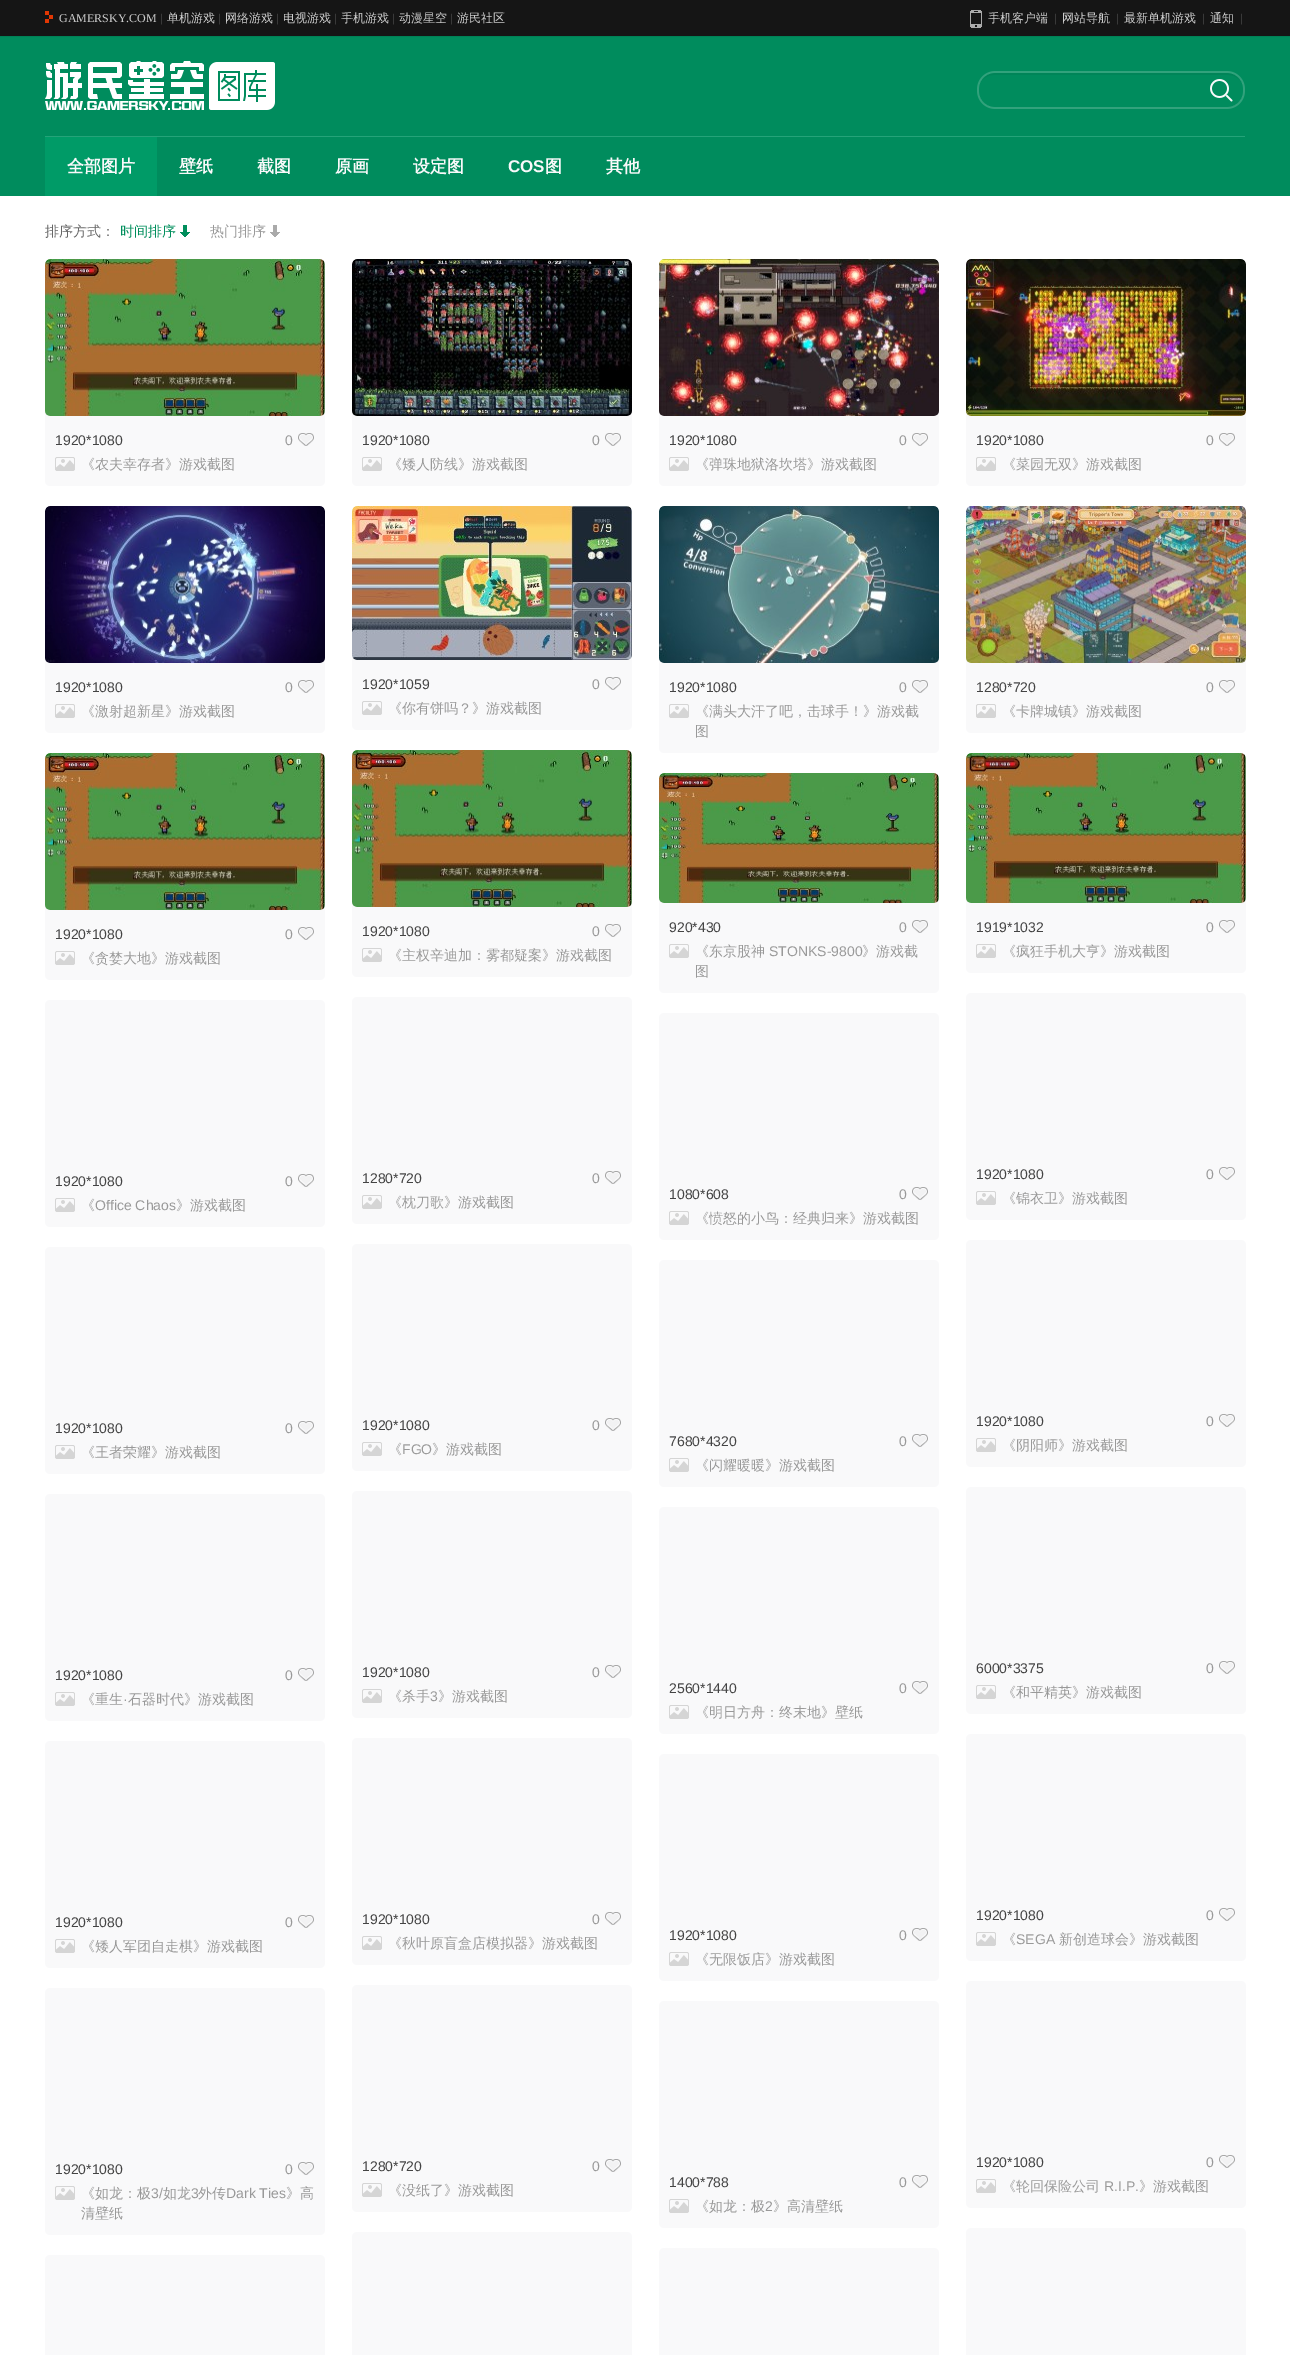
%!PS
<< /PageSize [1290 2355] /PageUsesTransparency true >> setpagedevice
/rgb { 3 { 255 div 3 1 roll } repeat setrgbcolor } def
/font { [ exch dup neg 0 0 3 -1 roll 0 0 ] selectfont } def
/alpha { dup .setfillconstantalpha .setstrokeconstantalpha } def
/roundrect { 5 dict begin { /r /h /w /y /x } { exch def } forall
  x r add y moveto x w add y 2 copy h add r arct x w add y h add x 1 index r arct
  x y h add x y r arct x y 2 copy exch w add exch r arct closepath end } def
/shadow { 12 dict begin { /a /b /q /h /w /y /x } { exch def } forall gsave /was 0 def
  9 -2 -9 { dup b mul 4 div /e exch def 1 sub .425 mul 2.718 exch exp 1 add a .99 .min exch div /now exch def
    1 1 now sub 1 was sub div sub alpha /was now def
    w h .min e 2 mul add 0 gt { x e sub y e sub w e 2 mul add h e 2 mul add
      q e add b .6 mul add w h .min 2 div e add .min 0 .max roundrect fill } if } for grestore end } def
/picture { 5 dict begin { /h /w /y /x /name } { exch def } forall
  gsave x y translate w h scale
  w h 8 [w 0 0 h 0 0] name (r) file false 3 colorimage grestore end } def
0 .pushpdf14devicefilter
0 2355 translate 1 -1 scale
4 setmiterlimit
255 255 255 rgb
0 0 1290 2355 rectfill
0 140 93 rgb
0 36 1290 160 rectfill
0 0 0 rgb
0 0 1290 36 0 0.5 0.3 shadow
21 21 21 rgb
0 0 1290 36 rectfill
(img/1.rgb) 45 11 8 12 picture
(img/2.rgb) 970 10 12 18 picture
37 163 121 rgb
45 136 1200 1 rectfill
(img/3.rgb) 45 61 230 49 picture
(img/4.rgb) 977 71 268 38 picture
0 155 103 rgb
45 137 112 59 rectfill
(img/5.rgb) 180 225 10 12 picture
(img/6.rgb) 270 225 10 12 picture
249 249 250 rgb
45 259 280 227 5 roundrect fill
(img/7.rgb) 45 259 280 157 picture
(img/8.rgb) 298 433 16 13 picture
(img/9.rgb) 55 457 20 14 picture
45 506 280 227 5 roundrect fill
(img/10.rgb) 45 506 280 157 picture
(img/8.rgb) 298 680 16 13 picture
(img/9.rgb) 55 704 20 14 picture
45 753 280 227 5 roundrect fill
(img/7.rgb) 45 753 280 157 picture
(img/8.rgb) 298 927 16 13 picture
(img/9.rgb) 55 951 20 14 picture
45 1000 280 227 5 roundrect fill
(img/8.rgb) 298 1174 16 13 picture
(img/9.rgb) 55 1198 20 14 picture
45 1247 280 227 5 roundrect fill
(img/8.rgb) 298 1421 16 13 picture
(img/9.rgb) 55 1445 20 14 picture
45 1494 280 227 5 roundrect fill
(img/8.rgb) 298 1668 16 13 picture
(img/9.rgb) 55 1692 20 14 picture
45 1741 280 227 5 roundrect fill
(img/8.rgb) 298 1915 16 13 picture
(img/9.rgb) 55 1939 20 14 picture
45 1988 280 247 5 roundrect fill
(img/8.rgb) 298 2162 16 13 picture
(img/9.rgb) 55 2186 20 14 picture
45 2255 280 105 5 roundrect fill
352 259 280 227 5 roundrect fill
(img/11.rgb) 352 259 280 157 picture
(img/8.rgb) 605 433 16 13 picture
(img/9.rgb) 362 457 20 14 picture
352 506 280 224 5 roundrect fill
(img/12.rgb) 352 506 280 154 picture
(img/8.rgb) 605 677 16 13 picture
(img/9.rgb) 362 701 20 14 picture
352 750 280 227 5 roundrect fill
(img/7.rgb) 352 750 280 157 picture
(img/8.rgb) 605 924 16 13 picture
(img/9.rgb) 362 948 20 14 picture
352 997 280 227 5 roundrect fill
(img/8.rgb) 605 1171 16 13 picture
(img/9.rgb) 362 1195 20 14 picture
352 1244 280 227 5 roundrect fill
(img/8.rgb) 605 1418 16 13 picture
(img/9.rgb) 362 1442 20 14 picture
352 1491 280 227 5 roundrect fill
(img/8.rgb) 605 1665 16 13 picture
(img/9.rgb) 362 1689 20 14 picture
352 1738 280 227 5 roundrect fill
(img/8.rgb) 605 1912 16 13 picture
(img/9.rgb) 362 1936 20 14 picture
352 1985 280 227 5 roundrect fill
(img/8.rgb) 605 2159 16 13 picture
(img/9.rgb) 362 2183 20 14 picture
352 2232 280 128 5 roundrect fill
659 259 280 227 5 roundrect fill
(img/13.rgb) 659 259 280 157 picture
(img/8.rgb) 912 433 16 13 picture
(img/9.rgb) 669 457 20 14 picture
659 506 280 247 5 roundrect fill
(img/14.rgb) 659 506 280 157 picture
(img/8.rgb) 912 680 16 13 picture
(img/9.rgb) 669 704 20 14 picture
659 773 280 220 5 roundrect fill
(img/15.rgb) 659 773 280 130 picture
(img/8.rgb) 912 920 16 13 picture
(img/9.rgb) 669 944 20 14 picture
659 1013 280 227 5 roundrect fill
(img/8.rgb) 912 1187 16 13 picture
(img/9.rgb) 669 1211 20 14 picture
659 1260 280 227 5 roundrect fill
(img/8.rgb) 912 1434 16 13 picture
(img/9.rgb) 669 1458 20 14 picture
659 1507 280 227 5 roundrect fill
(img/8.rgb) 912 1681 16 13 picture
(img/9.rgb) 669 1705 20 14 picture
659 1754 280 227 5 roundrect fill
(img/8.rgb) 912 1928 16 13 picture
(img/9.rgb) 669 1952 20 14 picture
659 2001 280 227 5 roundrect fill
(img/8.rgb) 912 2175 16 13 picture
(img/9.rgb) 669 2199 20 14 picture
659 2248 280 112 5 roundrect fill
966 259 280 227 5 roundrect fill
(img/16.rgb) 966 259 280 157 picture
(img/8.rgb) 1219 433 16 13 picture
(img/9.rgb) 976 457 20 14 picture
966 506 280 227 5 roundrect fill
(img/17.rgb) 966 506 280 157 picture
(img/8.rgb) 1219 680 16 13 picture
(img/9.rgb) 976 704 20 14 picture
966 753 280 220 5 roundrect fill
(img/18.rgb) 966 753 280 150 picture
(img/8.rgb) 1219 920 16 13 picture
(img/9.rgb) 976 944 20 14 picture
966 993 280 227 5 roundrect fill
(img/8.rgb) 1219 1167 16 13 picture
(img/9.rgb) 976 1191 20 14 picture
966 1240 280 227 5 roundrect fill
(img/8.rgb) 1219 1414 16 13 picture
(img/9.rgb) 976 1438 20 14 picture
966 1487 280 227 5 roundrect fill
(img/8.rgb) 1219 1661 16 13 picture
(img/9.rgb) 976 1685 20 14 picture
966 1734 280 227 5 roundrect fill
(img/8.rgb) 1219 1908 16 13 picture
(img/9.rgb) 976 1932 20 14 picture
966 1981 280 227 5 roundrect fill
(img/8.rgb) 1219 2155 16 13 picture
(img/9.rgb) 976 2179 20 14 picture
966 2228 280 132 5 roundrect fill
/LiberationSerif-Regular 12 font
204 204 204 rgb
59 22 moveto (GAMERSKY.COM) show
89 89 89 rgb
160 22 moveto (|) show
/WenQuanYiZenHei-Medium 12 font
204 204 204 rgb
167 22 moveto (单机游戏) show
/LiberationSerif-Regular 12 font
89 89 89 rgb
218 22 moveto (|) show
/WenQuanYiZenHei-Medium 12 font
204 204 204 rgb
225 22 moveto (网络游戏) show
/LiberationSerif-Regular 12 font
89 89 89 rgb
276 22 moveto (|) show
/WenQuanYiZenHei-Medium 12 font
204 204 204 rgb
283 22 moveto (电视游戏) show
/LiberationSerif-Regular 12 font
89 89 89 rgb
334 22 moveto (|) show
/WenQuanYiZenHei-Medium 12 font
204 204 204 rgb
341 22 moveto (手机游戏) show
/LiberationSerif-Regular 12 font
89 89 89 rgb
392 22 moveto (|) show
/WenQuanYiZenHei-Medium 12 font
204 204 204 rgb
399 22 moveto (动漫星空) show
/LiberationSerif-Regular 12 font
89 89 89 rgb
450 22 moveto (|) show
/WenQuanYiZenHei-Medium 12 font
204 204 204 rgb
457 22 moveto (游民社区) show
988 22 moveto (手机客户端) show
/LiberationSerif-Regular 12 font
89 89 89 rgb
1054 22 moveto (|) show
/WenQuanYiZenHei-Medium 12 font
204 204 204 rgb
1062 22 moveto (网站导航) show
/LiberationSerif-Regular 12 font
89 89 89 rgb
1116 22 moveto (|) show
/WenQuanYiZenHei-Medium 12 font
204 204 204 rgb
1124 22 moveto (最新单机游戏) show
/LiberationSerif-Regular 12 font
89 89 89 rgb
1202 22 moveto (|) show
/WenQuanYiZenHei-Medium 12 font
204 204 204 rgb
1210 22 moveto (通知) show
/LiberationSerif-Regular 12 font
89 89 89 rgb
1240 22 moveto (|) show
/WenQuanYiZenHei-Bold 17 font
249 249 250 rgb
[
  [(全部图片) 67 172]
  [(壁纸) 179 172]
  [(截图) 257 172]
  [(原画) 335 172]
  [(设定图) 413 172]
] { aload pop moveto show } forall
/LiberationSans-Bold 17 font
508 172 moveto (COS) show
/WenQuanYiZenHei-Bold 17 font
545 172 moveto (图) show
606 172 moveto (其他) show
/WenQuanYiZenHei-Medium 14 font
102 102 102 rgb
45 236 moveto (排序方式：) show
0 142 92 rgb
120 236 moveto (时间排序) show
153 153 153 rgb
210 236 moveto (热门排序) show
/LiberationSans-Regular 14 font
68 68 68 rgb
55 445 moveto (1920*1080) show
153 153 153 rgb
285 445 moveto (0) show
/WenQuanYiZenHei-Medium 14 font
81 469 moveto (《农夫幸存者》游戏截图) show
/LiberationSans-Regular 14 font
68 68 68 rgb
55 692 moveto (1920*1080) show
153 153 153 rgb
285 692 moveto (0) show
/WenQuanYiZenHei-Medium 14 font
81 716 moveto (《激射超新星》游戏截图) show
/LiberationSans-Regular 14 font
68 68 68 rgb
55 939 moveto (1920*1080) show
153 153 153 rgb
285 939 moveto (0) show
/WenQuanYiZenHei-Medium 14 font
81 963 moveto (《贪婪大地》游戏截图) show
/LiberationSans-Regular 14 font
68 68 68 rgb
55 1186 moveto (1920*1080) show
153 153 153 rgb
285 1186 moveto (0) show
/WenQuanYiZenHei-Medium 14 font
81 1210 moveto (《) show
/LiberationSans-Regular 14 font
95 1210 moveto (Office Chaos) show
/WenQuanYiZenHei-Medium 14 font
176 1210 moveto (》游戏截图) show
/LiberationSans-Regular 14 font
68 68 68 rgb
55 1433 moveto (1920*1080) show
153 153 153 rgb
285 1433 moveto (0) show
/WenQuanYiZenHei-Medium 14 font
81 1457 moveto (《王者荣耀》游戏截图) show
/LiberationSans-Regular 14 font
68 68 68 rgb
55 1680 moveto (1920*1080) show
153 153 153 rgb
285 1680 moveto (0) show
/WenQuanYiZenHei-Medium 14 font
81 1704 moveto (《重生) show
/LiberationSans-Regular 14 font
123 1704 moveto (·) show
/WenQuanYiZenHei-Medium 14 font
128 1704 moveto (石器时代》游戏截图) show
/LiberationSans-Regular 14 font
68 68 68 rgb
55 1927 moveto (1920*1080) show
153 153 153 rgb
285 1927 moveto (0) show
/WenQuanYiZenHei-Medium 14 font
81 1951 moveto (《矮人军团自走棋》游戏截图) show
/LiberationSans-Regular 14 font
68 68 68 rgb
55 2174 moveto (1920*1080) show
153 153 153 rgb
285 2174 moveto (0) show
/WenQuanYiZenHei-Medium 14 font
81 2198 moveto (《如龙：极) show
/LiberationSans-Regular 14 font
151 2198 moveto (3/) show
/WenQuanYiZenHei-Medium 14 font
163 2198 moveto (如龙) show
/LiberationSans-Regular 14 font
191 2198 moveto (3) show
/WenQuanYiZenHei-Medium 14 font
198 2198 moveto (外传) show
/LiberationSans-Regular 14 font
226 2198 moveto (Dark Ties) show
/WenQuanYiZenHei-Medium 14 font
286 2198 moveto (》高) show
81 2218 moveto (清壁纸) show
/LiberationSans-Regular 14 font
68 68 68 rgb
362 445 moveto (1920*1080) show
153 153 153 rgb
592 445 moveto (0) show
/WenQuanYiZenHei-Medium 14 font
388 469 moveto (《矮人防线》游戏截图) show
/LiberationSans-Regular 14 font
68 68 68 rgb
362 689 moveto (1920*1059) show
153 153 153 rgb
592 689 moveto (0) show
/WenQuanYiZenHei-Medium 14 font
388 713 moveto (《你有饼吗？》游戏截图) show
/LiberationSans-Regular 14 font
68 68 68 rgb
362 936 moveto (1920*1080) show
153 153 153 rgb
592 936 moveto (0) show
/WenQuanYiZenHei-Medium 14 font
388 960 moveto (《主权辛迪加：雾都疑案》游戏截图) show
/LiberationSans-Regular 14 font
68 68 68 rgb
362 1183 moveto (1280*720) show
153 153 153 rgb
592 1183 moveto (0) show
/WenQuanYiZenHei-Medium 14 font
388 1207 moveto (《枕刀歌》游戏截图) show
/LiberationSans-Regular 14 font
68 68 68 rgb
362 1430 moveto (1920*1080) show
153 153 153 rgb
592 1430 moveto (0) show
/WenQuanYiZenHei-Medium 14 font
388 1454 moveto (《) show
/LiberationSans-Regular 14 font
402 1454 moveto (FGO) show
/WenQuanYiZenHei-Medium 14 font
432 1454 moveto (》游戏截图) show
/LiberationSans-Regular 14 font
68 68 68 rgb
362 1677 moveto (1920*1080) show
153 153 153 rgb
592 1677 moveto (0) show
/WenQuanYiZenHei-Medium 14 font
388 1701 moveto (《杀手) show
/LiberationSans-Regular 14 font
430 1701 moveto (3) show
/WenQuanYiZenHei-Medium 14 font
438 1701 moveto (》游戏截图) show
/LiberationSans-Regular 14 font
68 68 68 rgb
362 1924 moveto (1920*1080) show
153 153 153 rgb
592 1924 moveto (0) show
/WenQuanYiZenHei-Medium 14 font
388 1948 moveto (《秋叶原盲盒店模拟器》游戏截图) show
/LiberationSans-Regular 14 font
68 68 68 rgb
362 2171 moveto (1280*720) show
153 153 153 rgb
592 2171 moveto (0) show
/WenQuanYiZenHei-Medium 14 font
388 2195 moveto (《没纸了》游戏截图) show
/LiberationSans-Regular 14 font
68 68 68 rgb
669 445 moveto (1920*1080) show
153 153 153 rgb
899 445 moveto (0) show
/WenQuanYiZenHei-Medium 14 font
695 469 moveto (《弹珠地狱洛坎塔》游戏截图) show
/LiberationSans-Regular 14 font
68 68 68 rgb
669 692 moveto (1920*1080) show
153 153 153 rgb
899 692 moveto (0) show
/WenQuanYiZenHei-Medium 14 font
695 716 moveto (《满头大汗了吧，击球手！》游戏截) show
695 736 moveto (图) show
/LiberationSans-Regular 14 font
68 68 68 rgb
669 932 moveto (920*430) show
153 153 153 rgb
899 932 moveto (0) show
/WenQuanYiZenHei-Medium 14 font
695 956 moveto (《东京股神) show
/LiberationSans-Regular 14 font
769 956 moveto (STONKS-9800) show
/WenQuanYiZenHei-Medium 14 font
862 956 moveto (》游戏截) show
695 976 moveto (图) show
/LiberationSans-Regular 14 font
68 68 68 rgb
669 1199 moveto (1080*608) show
153 153 153 rgb
899 1199 moveto (0) show
/WenQuanYiZenHei-Medium 14 font
695 1223 moveto (《愤怒的小鸟：经典归来》游戏截图) show
/LiberationSans-Regular 14 font
68 68 68 rgb
669 1446 moveto (7680*4320) show
153 153 153 rgb
899 1446 moveto (0) show
/WenQuanYiZenHei-Medium 14 font
695 1470 moveto (《闪耀暖暖》游戏截图) show
/LiberationSans-Regular 14 font
68 68 68 rgb
669 1693 moveto (2560*1440) show
153 153 153 rgb
899 1693 moveto (0) show
/WenQuanYiZenHei-Medium 14 font
695 1717 moveto (《明日方舟：终末地》壁纸) show
/LiberationSans-Regular 14 font
68 68 68 rgb
669 1940 moveto (1920*1080) show
153 153 153 rgb
899 1940 moveto (0) show
/WenQuanYiZenHei-Medium 14 font
695 1964 moveto (《无限饭店》游戏截图) show
/LiberationSans-Regular 14 font
68 68 68 rgb
669 2187 moveto (1400*788) show
153 153 153 rgb
899 2187 moveto (0) show
/WenQuanYiZenHei-Medium 14 font
695 2211 moveto (《如龙：极) show
/LiberationSans-Regular 14 font
765 2211 moveto (2) show
/WenQuanYiZenHei-Medium 14 font
773 2211 moveto (》高清壁纸) show
/LiberationSans-Regular 14 font
68 68 68 rgb
976 445 moveto (1920*1080) show
153 153 153 rgb
1206 445 moveto (0) show
/WenQuanYiZenHei-Medium 14 font
1002 469 moveto (《菜园无双》游戏截图) show
/LiberationSans-Regular 14 font
68 68 68 rgb
976 692 moveto (1280*720) show
153 153 153 rgb
1206 692 moveto (0) show
/WenQuanYiZenHei-Medium 14 font
1002 716 moveto (《卡牌城镇》游戏截图) show
/LiberationSans-Regular 14 font
68 68 68 rgb
976 932 moveto (1919*1032) show
153 153 153 rgb
1206 932 moveto (0) show
/WenQuanYiZenHei-Medium 14 font
1002 956 moveto (《疯狂手机大亨》游戏截图) show
/LiberationSans-Regular 14 font
68 68 68 rgb
976 1179 moveto (1920*1080) show
153 153 153 rgb
1206 1179 moveto (0) show
/WenQuanYiZenHei-Medium 14 font
1002 1203 moveto (《锦衣卫》游戏截图) show
/LiberationSans-Regular 14 font
68 68 68 rgb
976 1426 moveto (1920*1080) show
153 153 153 rgb
1206 1426 moveto (0) show
/WenQuanYiZenHei-Medium 14 font
1002 1450 moveto (《阴阳师》游戏截图) show
/LiberationSans-Regular 14 font
68 68 68 rgb
976 1673 moveto (6000*3375) show
153 153 153 rgb
1206 1673 moveto (0) show
/WenQuanYiZenHei-Medium 14 font
1002 1697 moveto (《和平精英》游戏截图) show
/LiberationSans-Regular 14 font
68 68 68 rgb
976 1920 moveto (1920*1080) show
153 153 153 rgb
1206 1920 moveto (0) show
/WenQuanYiZenHei-Medium 14 font
1002 1944 moveto (《) show
/LiberationSans-Regular 14 font
1016 1944 moveto (SEGA) show
/WenQuanYiZenHei-Medium 14 font
1059 1944 moveto (新创造球会》游戏截图) show
/LiberationSans-Regular 14 font
68 68 68 rgb
976 2167 moveto (1920*1080) show
153 153 153 rgb
1206 2167 moveto (0) show
/WenQuanYiZenHei-Medium 14 font
1002 2191 moveto (《轮回保险公司) show
/LiberationSans-Regular 14 font
1104 2191 moveto (R.I.P.) show
/WenQuanYiZenHei-Medium 14 font
1139 2191 moveto (》游戏截图) show
.poppdf14devicefilter showpage
